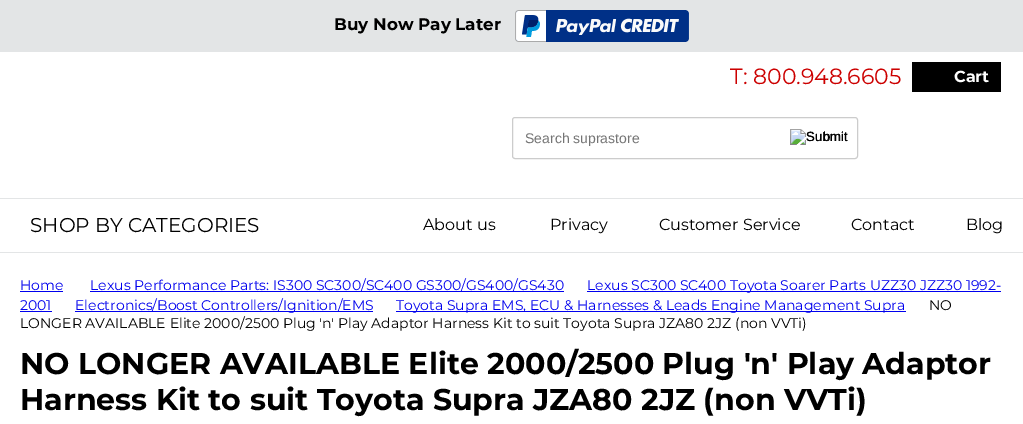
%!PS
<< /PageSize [1023 424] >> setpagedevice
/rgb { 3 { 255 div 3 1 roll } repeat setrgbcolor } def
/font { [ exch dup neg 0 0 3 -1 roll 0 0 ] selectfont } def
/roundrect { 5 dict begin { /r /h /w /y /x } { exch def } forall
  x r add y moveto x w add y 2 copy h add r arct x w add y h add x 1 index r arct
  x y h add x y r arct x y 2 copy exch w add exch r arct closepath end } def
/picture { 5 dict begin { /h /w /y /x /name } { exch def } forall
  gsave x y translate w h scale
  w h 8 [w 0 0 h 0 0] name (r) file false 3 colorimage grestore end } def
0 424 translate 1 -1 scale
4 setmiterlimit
255 255 255 rgb
0 0 1023 424 rectfill
227 229 230 rgb
0 0 1023 52 rectfill
(img/1.rgb) 515 10 174 32 picture
0 0 0 rgb
912 62 89 30 rectfill
204 204 204 rgb
512.5 117.5 345 41 2.5 roundrect stroke
(img/2.rgb) 790 129 57 16 picture
[
  [0 198 1023 1 227 229 230]
  [0 252 1023 1 227 229 230]
  [20 291 43 1 0 0 238]
  [90 291 474 1 0 0 238]
  [587 291 414 1 0 0 238]
  [20 311 32 1 0 0 238]
  [75 311 298 1 0 0 238]
  [396 311 510 1 0 0 238]
] { aload pop rgb rectfill } forall
/Montserrat-Bold 16.75 font
0 0 0 rgb
334 30 moveto (Buy Now Pay Later) show
/Montserrat-Regular 22 font
204 0 0 rgb
730 84 moveto (T: 800.948.6605) show
/Montserrat-Bold 16 font
255 255 255 rgb
954 82 moveto (Cart) show
/LiberationSans-Regular 14 font
117 117 117 rgb
525 143 moveto (Search suprastore) show
/LiberationSans-Regular 13.5 font
0 0 0 rgb
806 141 moveto (Submit) show
/Montserrat-Regular 20 font
30 232 moveto (SHOP BY CATEGORIES) show
/Montserrat-Regular 16 font
[
  [(About us) 423 230]
  [(Privacy) 550 230]
  [(Customer Service) 659 230]
  [(Contact) 851 230]
  [(Blog) 966 230]
] { aload pop moveto show } forall
/Montserrat-Regular 14 font
0 0 238 rgb
[
  [(Home) 20 290]
  [(Lexus Performance Parts: IS300 SC300/SC400 GS300/GS400/GS430) 90 290]
  [(Lexus SC300 SC400 Toyota Soarer Parts UZZ30 JZZ30 1992-) 587 290]
  [(2001) 20 310]
  [(Electronics/Boost Controllers/Ignition/EMS) 75 310]
  [(Toyota Supra EMS, ECU & Harnesses & Leads Engine Management Supra) 396 310]
] { aload pop moveto show } forall
0 0 0 rgb
929 310 moveto (NO) show
20 328 moveto (LONGER AVAILABLE Elite 2000/2500 Plug 'n' Play Adaptor Harness Kit to suit Toyota Supra JZA80 2JZ \(non VVTi\)) show
/Montserrat-Bold 30 font
20 374 moveto (NO LONGER AVAILABLE Elite 2000/2500 Plug 'n' Play Adaptor) show
20 410 moveto (Harness Kit to suit Toyota Supra JZA80 2JZ \(non VVTi\)) show
showpage
